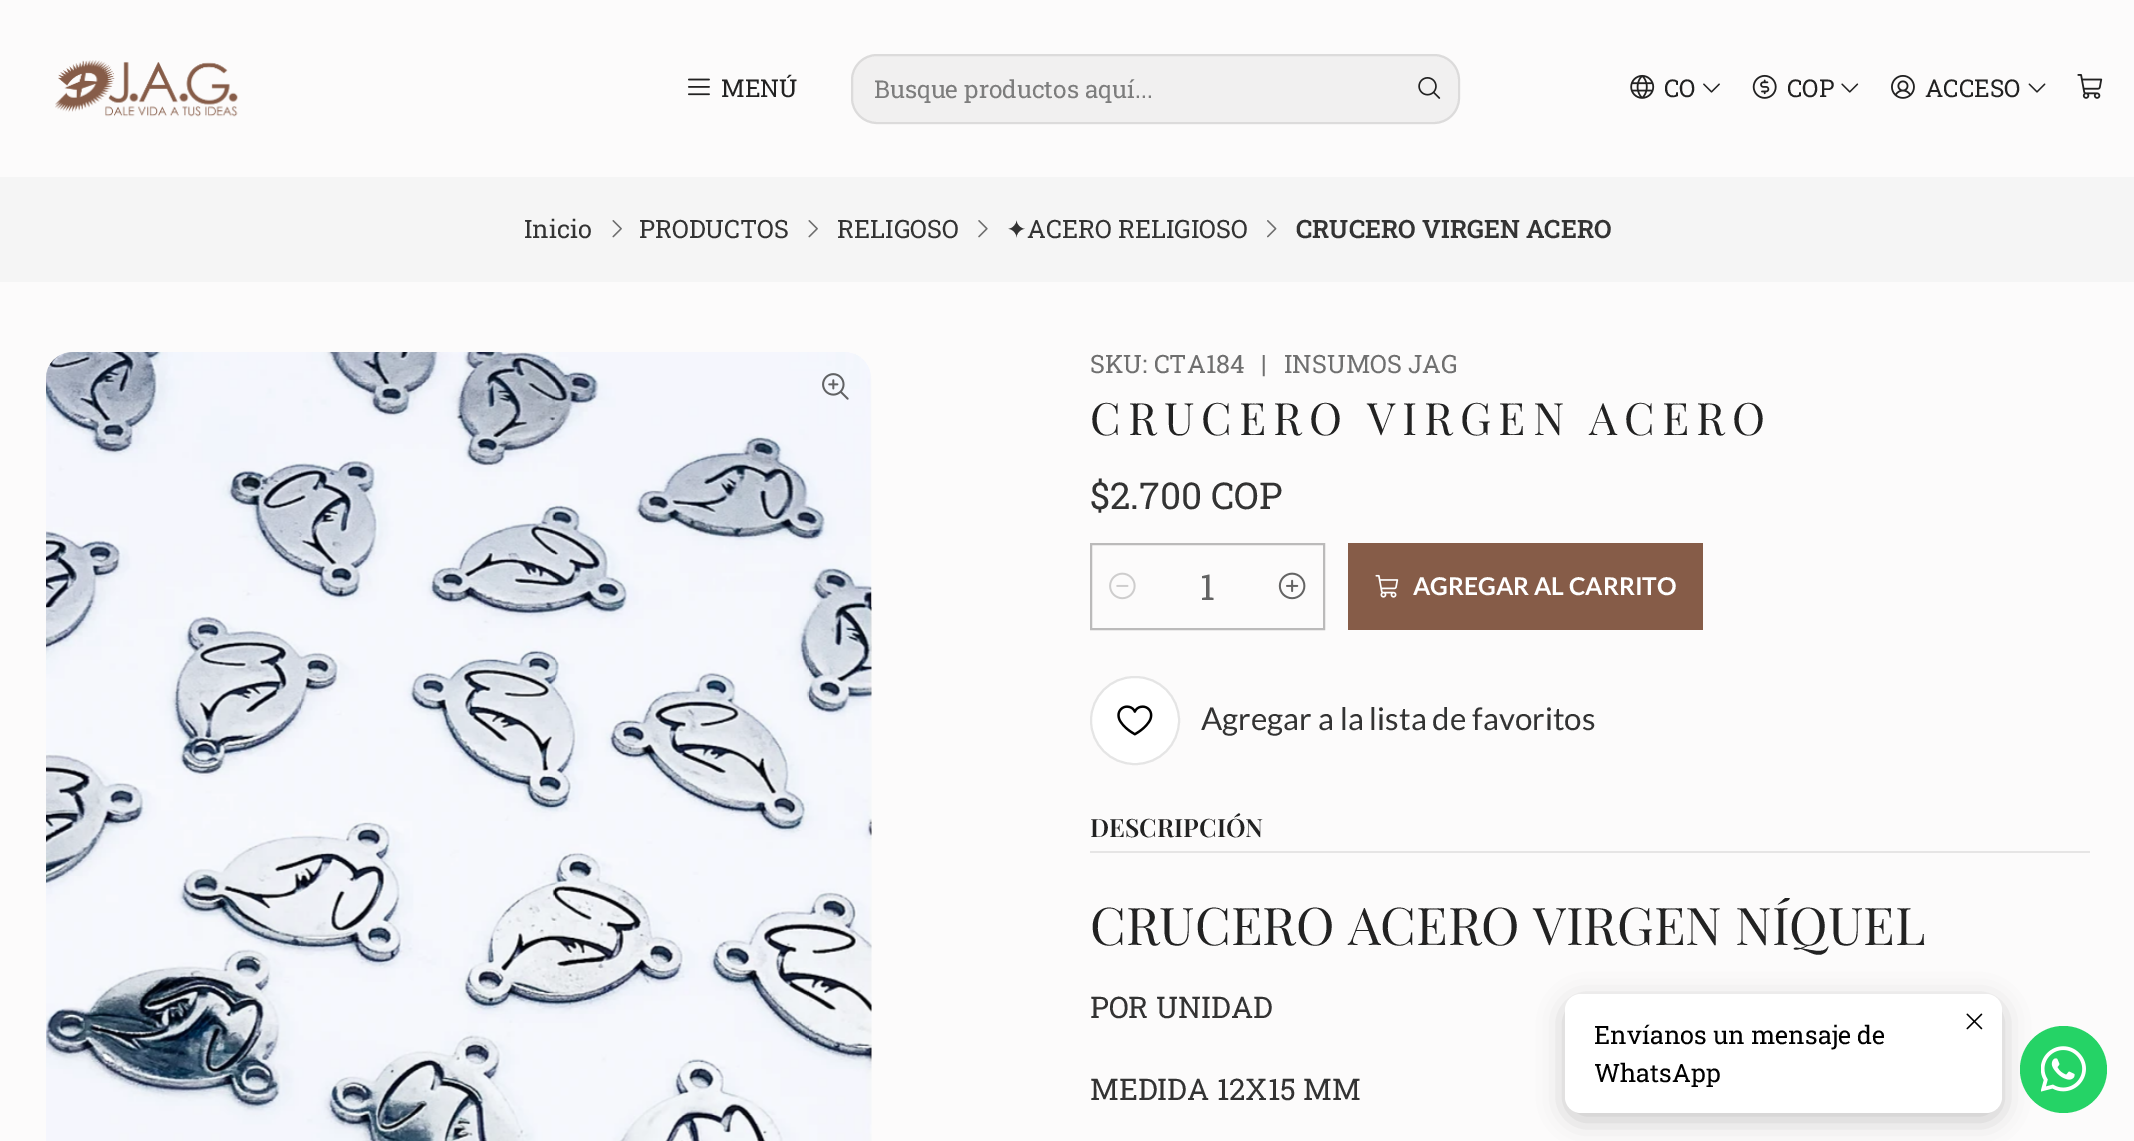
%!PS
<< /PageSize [2134 1141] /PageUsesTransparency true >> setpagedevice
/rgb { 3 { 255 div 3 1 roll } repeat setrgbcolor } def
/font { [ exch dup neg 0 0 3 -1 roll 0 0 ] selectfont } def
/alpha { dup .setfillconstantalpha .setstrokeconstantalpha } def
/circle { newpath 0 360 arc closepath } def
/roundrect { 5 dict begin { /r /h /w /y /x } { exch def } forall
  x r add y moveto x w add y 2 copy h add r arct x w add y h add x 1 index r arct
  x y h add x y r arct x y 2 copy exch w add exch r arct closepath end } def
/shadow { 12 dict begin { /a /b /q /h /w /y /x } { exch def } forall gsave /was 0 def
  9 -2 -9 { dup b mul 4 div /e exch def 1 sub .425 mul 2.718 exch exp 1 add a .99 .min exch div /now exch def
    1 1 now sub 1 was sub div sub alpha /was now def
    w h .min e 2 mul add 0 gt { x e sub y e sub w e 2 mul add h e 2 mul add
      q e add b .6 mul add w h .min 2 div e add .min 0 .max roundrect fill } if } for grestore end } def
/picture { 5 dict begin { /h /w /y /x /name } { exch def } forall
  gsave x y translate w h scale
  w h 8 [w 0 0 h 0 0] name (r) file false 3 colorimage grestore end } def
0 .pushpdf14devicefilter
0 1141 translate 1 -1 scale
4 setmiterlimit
252 251 251 rgb
0 0 2134 1141 rectfill
(img/1.rgb) 55 60 183 57 picture
(img/2.rgb) 688 78 22 18 picture
241 240 240 rgb
851 54 609 70 26 roundrect fill
0.1 alpha
34 34 34 rgb
2 setlinewidth
852 55 607 68 25 roundrect stroke
1 alpha
(img/3.rgb) 1418 77 23 22 picture
(img/4.rgb) 1630 74 25 25 picture
(img/5.rgb) 1703 83 17 10 picture
(img/6.rgb) 1752 74 25 25 picture
(img/7.rgb) 1841 83 18 10 picture
(img/8.rgb) 1891 75 24 24 picture
(img/9.rgb) 2028 83 18 10 picture
(img/10.rgb) 2077 74 26 25 picture
245 245 245 rgb
0 177 2134 105 rectfill
(img/11.rgb) 612 220 10 18 picture
(img/11.rgb) 808 220 10 18 picture
(img/12.rgb) 978 220 10 18 picture
(img/13.rgb) 1267 220 10 18 picture
(img/14.rgb) 46 352 826 789 picture
(img/15.rgb) 822 373 27 27 picture
187 186 186 rgb
1091 544 233 85 rectstroke
(img/16.rgb) 1109 572 27 28 picture
(img/17.rgb) 1278 572 28 28 picture
134 92 72 rgb
1348 543 355 87 rectfill
(img/18.rgb) 1375 574 24 24 picture
255 255 255 rgb
1091 677 88 87 43.5 roundrect gsave fill grestore
229 229 229 rgb
stroke
(img/19.rgb) 1117 705 36 31 picture
230 229 229 rgb
1090 851 1000 2 rectfill
0 0 0 rgb
1565 1001 437 119 16 13 0.2 shadow
255 255 255 rgb
1565 994 437 119 16 roundrect fill
(img/20.rgb) 1966 1013 17 17 picture
37 211 102 rgb
2063.5 1069.5 43.5 circle fill
(img/21.rgb) 2041 1046 45 46 picture
/RobotoSlab-Regular 24.5 font
34 34 34 rgb
721 97 moveto (MENÚ) show
125 125 125 rgb
874 98 moveto (Busque productos aquí...) show
34 34 34 rgb
[
  [(CO) 1664 97]
  [(COP) 1787 97]
  [(ACCESO) 1925 97]
] { aload pop moveto show } forall
/RobotoSlab-Regular 25.25 font
51 51 51 rgb
[
  [(Inicio) 524 238]
  [(PRODUCTOS) 639 238]
  [(RELIGOSO) 837 238]
] { aload pop moveto show } forall
/DejaVuSans-Regular 25.25 font
1006 238 moveto (✦) show
/RobotoSlab-Regular 25.25 font
1027 238 moveto (ACERO RELIGIOSO) show
/RobotoSlab-SemiBold 25.25 font
1296 238 moveto (CRUCERO VIRGEN ACERO) show
/RobotoSlab-Regular 25.25 font
111 111 111 rgb
[
  [(SKU: CTA184) 1090 373]
  [(|) 1261 373]
  [(INSUMOS JAG) 1284 373]
] { aload pop moveto show } forall
/PlayfairDisplay-Regular 44.6 font
34 34 34 rgb
1090 435 moveto 7 0 (CRUCERO VIRGEN ACERO) ashow
/RobotoSlab-Regular 37 font
51 51 51 rgb
1090 509 moveto ($2.700 COP) show
/RobotoSlab-Regular 36 font
99 99 99 rgb
1200 600 moveto (1) show
/Lato-Bold 24.5 font
255 255 255 rgb
1413 595 moveto (AGREGAR AL CARRITO) show
/Lato-Regular 31.25 font
51 51 51 rgb
1201 730 moveto (Agregar a la lista de favoritos) show
/PlayfairDisplay-SemiBold 25.25 font
34 34 34 rgb
1090 837 moveto (DESCRIPCIÓN) show
gsave
1090 898 1000 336 rectclip
/PlayfairDisplay-Regular 52 font
1090 945 moveto (CRUCERO ACERO VIRGEN NÍQUEL) show
grestore
/RobotoSlab-Regular 29.75 font
51 51 51 rgb
1090 1018 moveto (POR UNIDAD) show
1090 1100 moveto (MEDIDA 12X15 MM) show
/RobotoSlab-Regular 25.25 font
0 0 0 rgb
1594 1044 moveto (Envíanos un mensaje de) show
1594 1082 moveto (WhatsApp) show
.poppdf14devicefilter showpage
